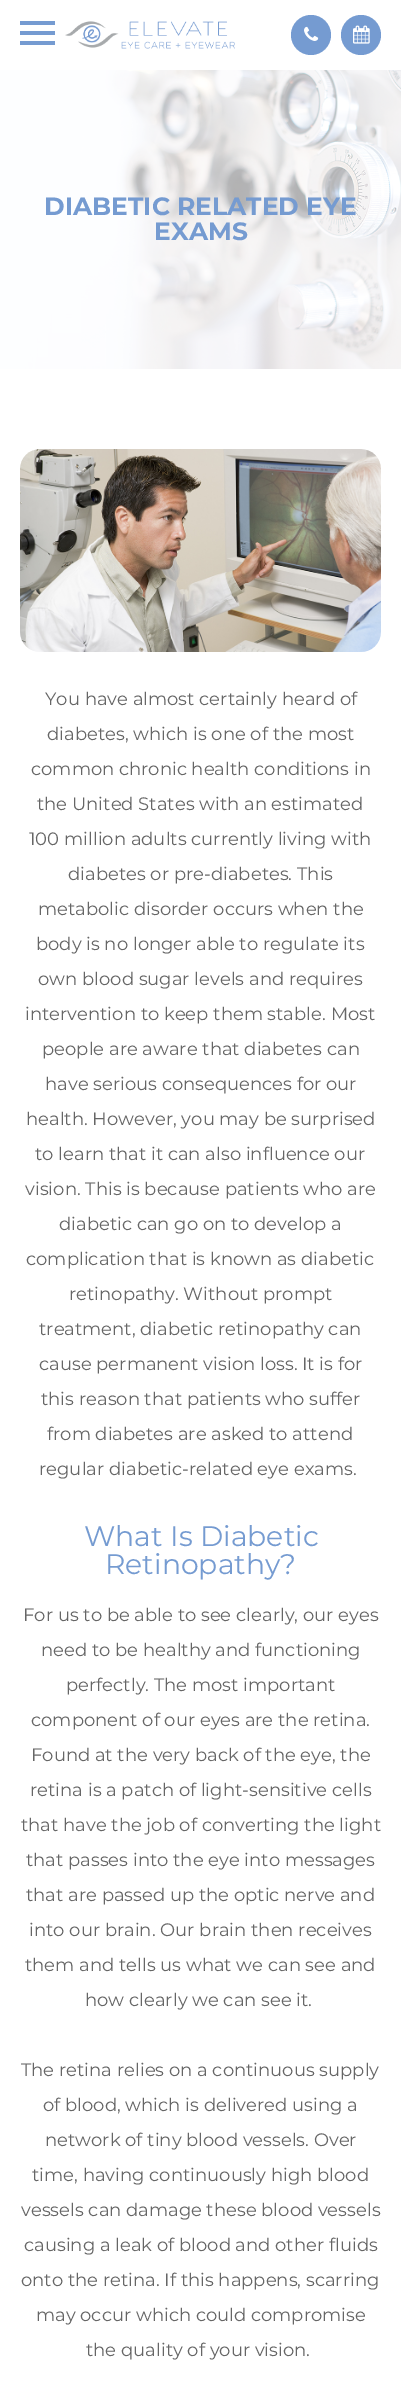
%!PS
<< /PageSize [401 2389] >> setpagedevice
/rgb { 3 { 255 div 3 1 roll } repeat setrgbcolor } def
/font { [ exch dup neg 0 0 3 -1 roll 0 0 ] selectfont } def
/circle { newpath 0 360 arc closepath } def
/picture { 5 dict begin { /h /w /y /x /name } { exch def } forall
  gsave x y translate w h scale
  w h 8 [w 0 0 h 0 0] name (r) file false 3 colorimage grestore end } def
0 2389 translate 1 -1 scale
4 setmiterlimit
255 255 255 rgb
0 0 401 2389 rectfill
[
  [20 41 35 4 117 155 209]
  [20 21 35 4 117 155 209]
  [20 31 35 4 117 155 209]
] { aload pop rgb rectfill } forall
(img/1.rgb) 65 21 170 28 picture
311 35 20 circle fill
(img/2.rgb) 304 26 15 15 picture
361 35 20 circle fill
(img/3.rgb) 353 25 17 19 picture
(img/4.rgb) 0 70 401 299 picture
(img/5.rgb) 20 449 361 203 picture
/Montserrat-Bold 25 font
44 215 moveto (DIABETIC RELATED EYE) show
154 240 moveto (EXAMS) show
/Montserrat-Regular 18 font
102 102 102 rgb
[
  [(You have almost certainly heard of) 45 705]
  [(diabetes, which is one of the most) 47 740]
  [(common chronic health conditions in) 31 775]
  [(the United States with an estimated) 37 810]
  [(100 million adults currently living with) 29 845]
  [(diabetes or pre-diabetes. This) 68 880]
  [(metabolic disorder occurs when the) 38 915]
  [(body is no longer able to regulate its) 36 950]
  [(own blood sugar levels and requires) 38 985]
  [(intervention to keep them stable. Most) 25 1020]
  [(people are aware that diabetes can) 42 1055]
  [(have serious consequences for our) 45 1090]
  [(health. However, you may be surprised) 26 1125]
  [(to learn that it can also influence our) 35 1160]
  [(vision. This is because patients who are) 25 1195]
  [(diabetic can go on to develop a) 59 1230]
  [(complication that is known as diabetic) 26 1265]
  [(retinopathy. Without prompt) 69 1300]
  [(treatment, diabetic retinopathy can) 39 1335]
  [(cause permanent vision loss. It is for) 39 1370]
  [(this reason that patients who suffer) 41 1405]
  [(from diabetes are asked to attend) 47 1440]
  [(regular diabetic-related eye exams.) 39 1475]
] { aload pop moveto show } forall
/Montserrat-Regular 28.25 font
117 155 209 rgb
84 1546 moveto (What Is Diabetic) show
105 1574 moveto (Retinopathy?) show
/Montserrat-Regular 18 font
102 102 102 rgb
[
  [(For us to be able to see clearly, our eyes) 23 1621]
  [(need to be healthy and functioning) 41 1656]
  [(perfectly. The most important) 66 1691]
  [(component of our eyes are the retina.) 31 1726]
  [(Found at the very back of the eye, the) 31 1761]
  [(retina is a patch of light-sensitive cells) 30 1796]
  [(that have the job of converting the light) 21 1831]
  [(that passes into the eye into messages) 26 1866]
  [(that are passed up the optic nerve and) 26 1901]
  [(into our brain. Our brain then receives) 29 1936]
  [(them and tells us what we can see and) 25 1971]
  [(how clearly we can see it.) 85 2006]
  [(The retina relies on a continuous supply) 21 2076]
  [(of blood, which is delivered using a) 43 2111]
  [(network of tiny blood vessels. Over) 45 2146]
  [(time, having continuously high blood) 32 2181]
  [(vessels can damage these blood vessels) 21 2216]
  [(causing a leak of blood and other fluids) 24 2251]
  [(onto the retina. If this happens, scarring) 21 2286]
  [(may occur which could compromise) 36 2321]
  [(the quality of your vision.) 86 2356]
] { aload pop moveto show } forall
showpage
